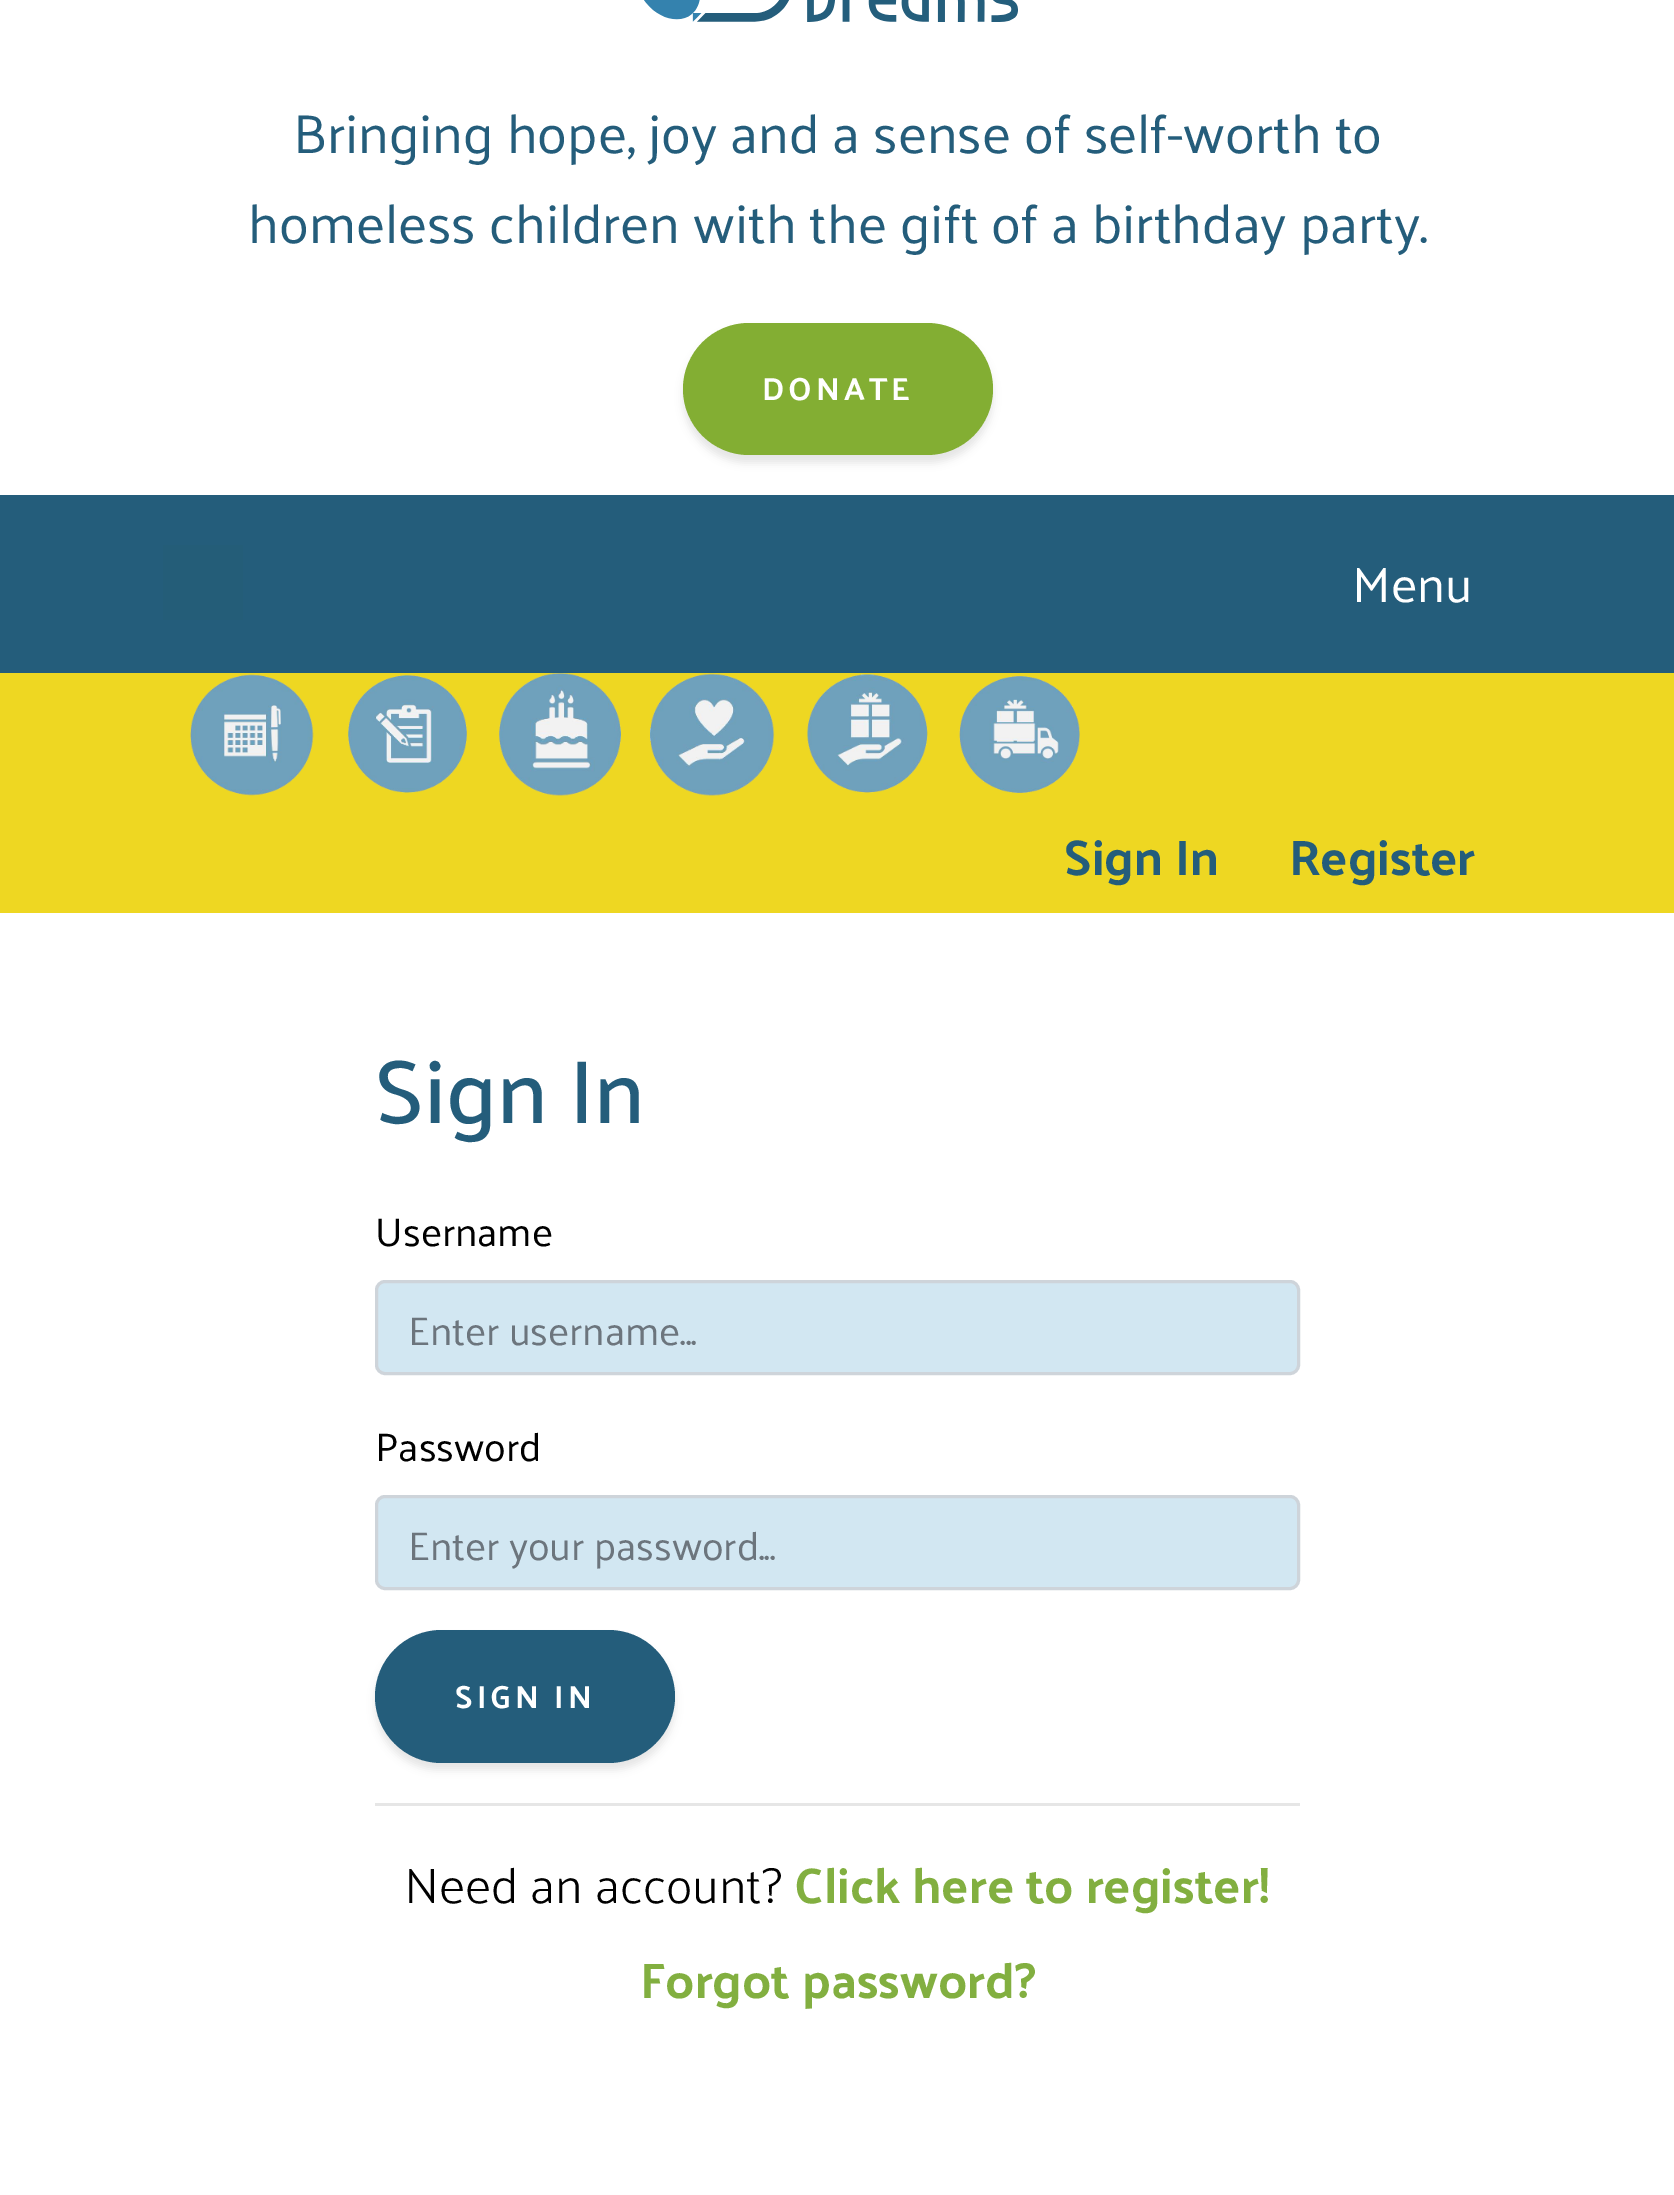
%!PS
<< /PageSize [1674 2195] /PageUsesTransparency true >> setpagedevice
/rgb { 3 { 255 div 3 1 roll } repeat setrgbcolor } def
/font { [ exch dup neg 0 0 3 -1 roll 0 0 ] selectfont } def
/alpha { dup .setfillconstantalpha .setstrokeconstantalpha } def
/roundrect { 5 dict begin { /r /h /w /y /x } { exch def } forall
  x r add y moveto x w add y 2 copy h add r arct x w add y h add x 1 index r arct
  x y h add x y r arct x y 2 copy exch w add exch r arct closepath end } def
/shadow { 12 dict begin { /a /b /q /h /w /y /x } { exch def } forall gsave /was 0 def
  9 -2 -9 { dup b mul 4 div /e exch def 1 sub .425 mul 2.718 exch exp 1 add a .99 .min exch div /now exch def
    1 1 now sub 1 was sub div sub alpha /was now def
    w h .min e 2 mul add 0 gt { x e sub y e sub w e 2 mul add h e 2 mul add
      q e add b .6 mul add w h .min 2 div e add .min 0 .max roundrect fill } if } for grestore end } def
/picture { 5 dict begin { /h /w /y /x /name } { exch def } forall
  gsave x y translate w h scale
  w h 8 [w 0 0 h 0 0] name (r) file false 3 colorimage grestore end } def
0 .pushpdf14devicefilter
0 2195 translate 1 -1 scale
4 setmiterlimit
255 255 255 rgb
0 0 1674 2195 rectfill
(img/1.rgb) 644 0 374 22 picture
0 0 0 rgb
683 330 310 133 66.5 4 0.1 shadow
131 174 51 rgb
683 323 310 132 66 roundrect fill
[
  [0 495 1674 178 36 93 123]
  [163 545 80 75 36 93 120]
  [0 673 1674 240 238 215 34]
] { aload pop rgb rectfill } forall
(img/2.rgb) 190 674 124 122 picture
(img/3.rgb) 348 675 119 118 picture
(img/4.rgb) 499 673 122 123 picture
(img/5.rgb) 650 673 125 123 picture
(img/6.rgb) 807 674 121 119 picture
(img/7.rgb) 959 676 121 117 picture
210 231 242 rgb
376.5 1281.5 922 92 8.5 roundrect gsave fill grestore
206 212 218 rgb
3 setlinewidth
stroke
210 231 242 rgb
376.5 1496.5 922 92 8.5 roundrect gsave fill grestore
206 212 218 rgb
stroke
0 0 0 rgb
375 1638 300 132 66 4 0.1 shadow
36 93 123 rgb
375 1630 300 133 66.5 roundrect fill
230 230 230 rgb
375 1803 925 3 rectfill
/Palanquin-Regular 55 font
36 93 123 rgb
293 153 moveto (Bringing hope, joy and a sense of self-worth to) show
248 243 moveto (homeless children with the gift of a birthday party.) show
/Palanquin-Bold 32 font
255 255 255 rgb
762 400 moveto 4 0 (DONATE) ashow
/Palanquin-Regular 50 font
1352 602 moveto (Menu) show
/Palanquin-Bold 50 font
36 93 123 rgb
1064 875 moveto (Sign In) show
1289 875 moveto (Register) show
/Palanquin-Medium 90 font
375 1123 moveto (Sign In) show
/Palanquin-Regular 40 font
0 0 0 rgb
375 1246 moveto (Username) show
108 117 125 rgb
408 1345 moveto (Enter username...) show
0 0 0 rgb
375 1461 moveto (Password) show
108 117 125 rgb
408 1560 moveto (Enter your password...) show
/Palanquin-Bold 32 font
255 255 255 rgb
455 1708 moveto 4 0 (SIGN IN) ashow
/Palanquin-Light 50 font
0 0 0 rgb
404 1903 moveto (Need an account?) show
/Palanquin-Bold 50 font
130 175 64 rgb
794 1903 moveto (Click here to register!) show
640 1998 moveto (Forgot password?) show
.poppdf14devicefilter showpage
